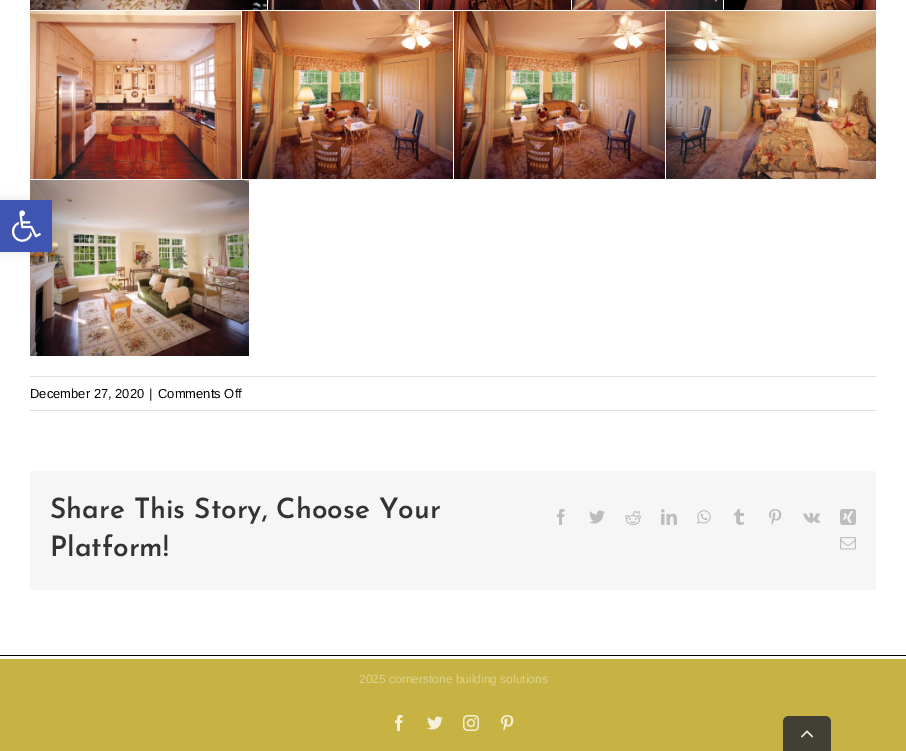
%!PS
<< /PageSize [906 751] /PageUsesTransparency true >> setpagedevice
/rgb { 3 { 255 div 3 1 roll } repeat setrgbcolor } def
/font { [ exch dup neg 0 0 3 -1 roll 0 0 ] selectfont } def
/alpha { dup .setfillconstantalpha .setstrokeconstantalpha } def
/roundrect { 5 dict begin { /r /h /w /y /x } { exch def } forall
  x r add y moveto x w add y 2 copy h add r arct x w add y h add x 1 index r arct
  x y h add x y r arct x y 2 copy exch w add exch r arct closepath end } def
/shadow { 12 dict begin { /a /b /q /h /w /y /x } { exch def } forall gsave /was 0 def
  9 -2 -9 { dup b mul 4 div /e exch def 1 sub .425 mul 2.718 exch exp 1 add a .99 .min exch div /now exch def
    1 1 now sub 1 was sub div sub alpha /was now def
    w h .min e 2 mul add 0 gt { x e sub y e sub w e 2 mul add h e 2 mul add
      q e add b .6 mul add w h .min 2 div e add .min 0 .max roundrect fill } if } for grestore end } def
/picture { 5 dict begin { /h /w /y /x /name } { exch def } forall
  gsave x y translate w h scale
  w h 8 [w 0 0 h 0 0] name (r) file false 3 colorimage grestore end } def
0 .pushpdf14devicefilter
0 751 translate 1 -1 scale
4 setmiterlimit
255 255 255 rgb
0 0 906 751 rectfill
(img/11.rgb) 30 180 219 176 picture
0 0 0 rgb
0 200 52 52 0 5 0.1 shadow
64 84 178 rgb
0 200 52 52 rectfill
(img/1.rgb) 11 210 30 32 picture
(img/2.rgb) 30 0 237 10 picture
(img/3.rgb) 268 0 151 10 picture
(img/4.rgb) 420 0 151 10 picture
(img/5.rgb) 572 0 151 10 picture
(img/6.rgb) 724 0 152 10 picture
(img/7.rgb) 30 11 211 168 picture
(img/8.rgb) 242 11 211 168 picture
(img/9.rgb) 454 11 211 168 picture
(img/10.rgb) 666 11 210 168 picture
[
  [30 376 846 1 224 222 222]
  [30 410 846 1 224 222 222]
  [30 471 846 119 246 246 246]
] { aload pop rgb rectfill } forall
(img/12.rgb) 557 509 8 16 picture
(img/13.rgb) 589 510 16 14 picture
(img/14.rgb) 625 511 16 14 picture
(img/15.rgb) 661 509 16 16 picture
(img/16.rgb) 697 510 14 14 picture
(img/17.rgb) 734 509 10 16 picture
(img/18.rgb) 768 509 14 16 picture
(img/19.rgb) 803 513 17 10 picture
(img/20.rgb) 840 509 16 16 picture
(img/21.rgb) 840 537 16 13 picture
0 0 0 rgb
0 655 906 1 rectfill
199 179 68 rgb
0 659 906 92 rectfill
(img/22.rgb) 395 715 8 16 picture
(img/23.rgb) 427 716 16 14 picture
(img/24.rgb) 463 715 16 16 picture
(img/25.rgb) 500 715 14 16 picture
66 64 53 rgb
789 716 moveto 825 716 lineto 828.5 716 831 718.5 831 722 curveto 831 751 lineto 783 751 lineto 783 722 lineto 783 718.5 785.5 716 789 716 curveto closepath fill
(img/26.rgb) 801 730 13 8 picture
/LiberationSans-Regular 13 font
0 0 0 rgb
[
  [(December 27, 2020) 30 398]
  [(|) 149 398]
  [(Comments Off) 158 398]
] { aload pop moveto show } forall
/JosefinSans-SemiBold 28 font
51 51 51 rgb
50 518 moveto (Share This Story, Choose Your) show
50 556 moveto (Platform!) show
/LiberationSans-Regular 12 font
221 209 143 rgb
359 683 moveto (2025 cornerstone building solutions) show
.poppdf14devicefilter showpage
